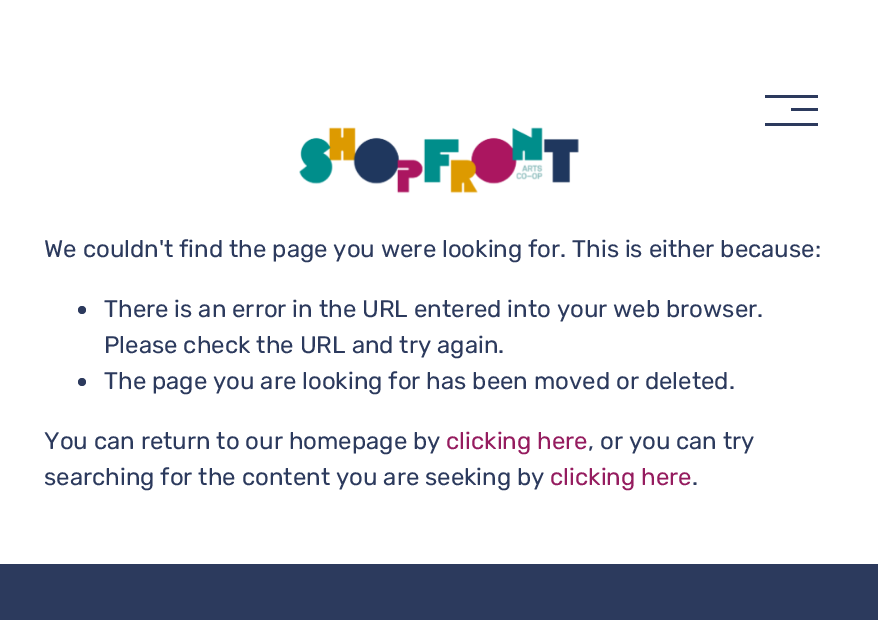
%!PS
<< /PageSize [878 620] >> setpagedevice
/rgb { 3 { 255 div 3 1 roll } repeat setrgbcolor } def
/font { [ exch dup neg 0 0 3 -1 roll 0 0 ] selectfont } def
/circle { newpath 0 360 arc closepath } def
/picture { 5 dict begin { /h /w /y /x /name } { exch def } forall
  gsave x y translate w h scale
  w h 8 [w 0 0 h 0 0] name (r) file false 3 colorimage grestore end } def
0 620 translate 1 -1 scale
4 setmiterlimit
255 255 255 rgb
0 0 878 620 rectfill
[
  [765 95 53 3 44 58 93]
  [791 108 27 3 44 58 93]
  [765 123 53 3 44 58 93]
] { aload pop rgb rectfill } forall
(img/1.rgb) 299 127 280 67 picture
82 310 4 circle fill
82 382 4 circle fill
0 564 878 56 rectfill
/Rubik-Regular 24 font
[
  [(We couldn't find the page you were looking for. This is either because:) 44 257]
  [(There is an error in the URL entered into your web browser.) 104 317]
  [(Please check the URL and try again.) 104 353]
  [(The page you are looking for has been moved or deleted.) 104 389]
  [(You can return to our homepage by) 44 449]
] { aload pop moveto show } forall
149 28 95 rgb
446 449 moveto (clicking here) show
44 58 93 rgb
588 449 moveto (, or you can try) show
44 485 moveto (searching for the content you are seeking by) show
149 28 95 rgb
550 485 moveto (clicking here) show
44 58 93 rgb
692 485 moveto (.) show
showpage
